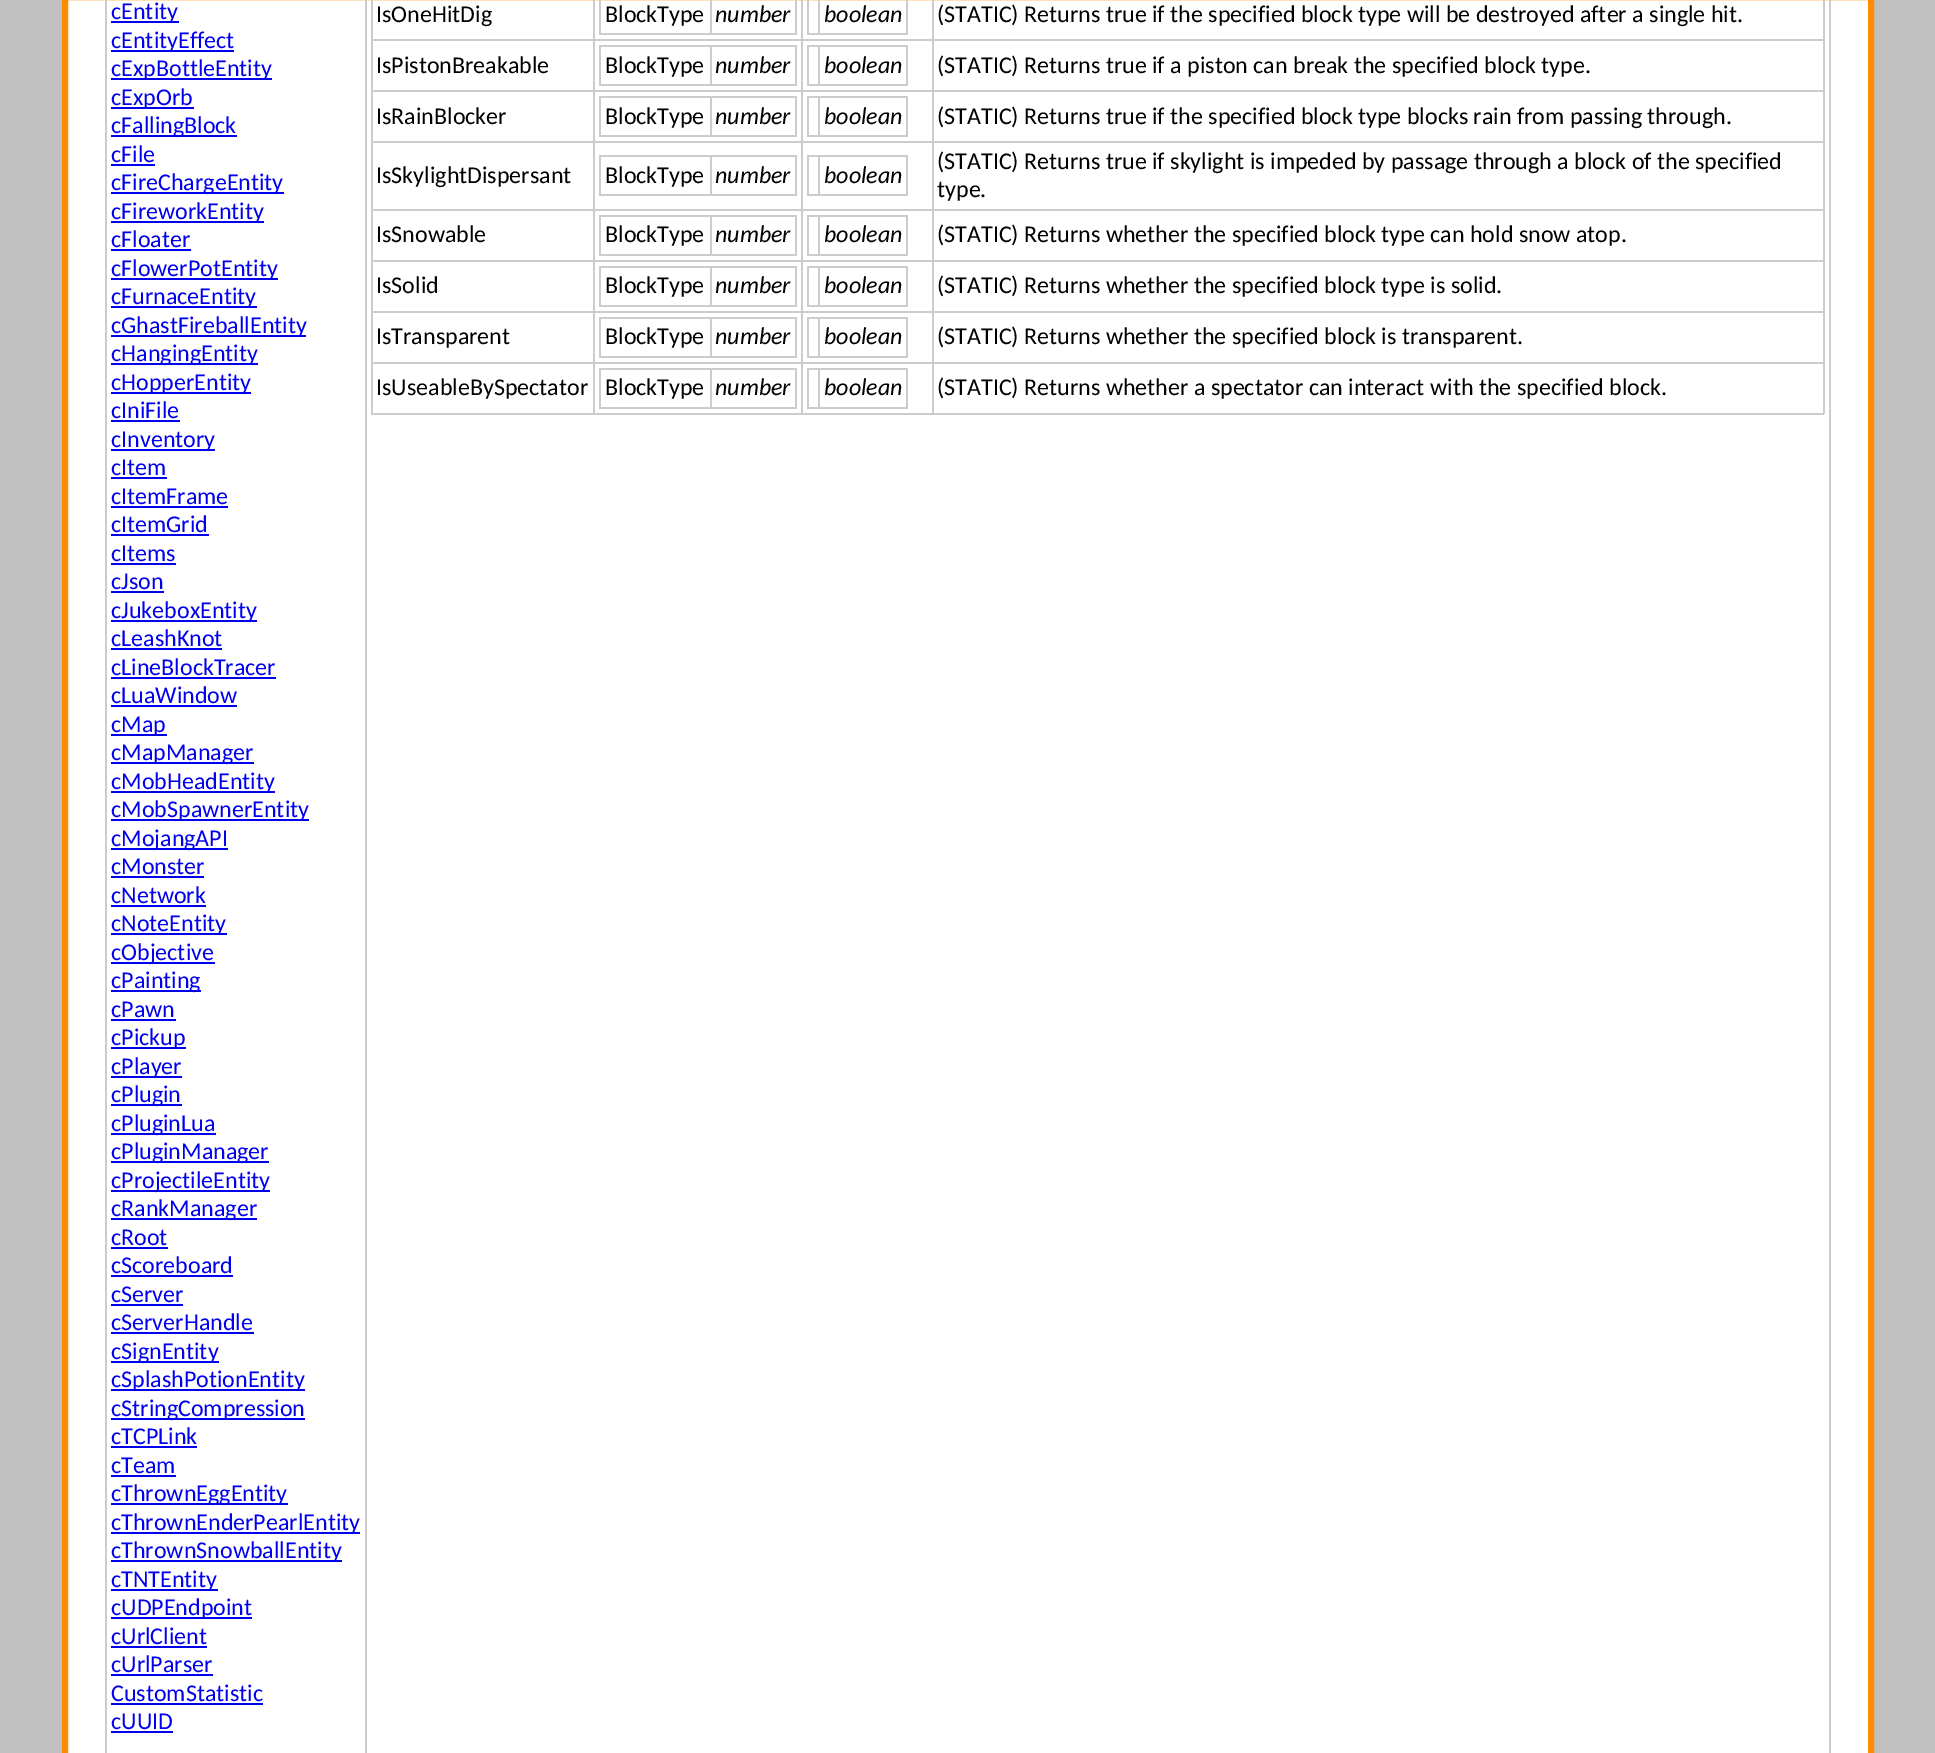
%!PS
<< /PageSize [1935 1753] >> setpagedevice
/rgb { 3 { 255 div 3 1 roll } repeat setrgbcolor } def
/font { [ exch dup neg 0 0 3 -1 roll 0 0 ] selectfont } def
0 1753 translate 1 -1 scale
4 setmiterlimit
192 192 192 rgb
0 0 1935 1753 rectfill
255 255 255 rgb
65 -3 moveto 1871 -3 lineto 1871 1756 lineto 65 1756 lineto closepath gsave fill grestore
255 140 0 rgb
6 setlinewidth
stroke
[
  [105 0 2 1753 204 204 204]
  [111 21 68 2 0 0 238]
  [111 50 123 2 0 0 238]
  [111 78 161 2 0 0 238]
  [111 107 83 2 0 0 238]
  [111 135 126 2 0 0 238]
  [111 164 44 2 0 0 238]
  [111 192 173 2 0 0 238]
  [111 221 153 2 0 0 238]
  [111 249 80 2 0 0 238]
  [111 278 167 2 0 0 238]
  [111 306 146 2 0 0 238]
  [111 335 195 2 0 0 238]
  [111 363 147 2 0 0 238]
  [111 392 140 2 0 0 238]
  [111 420 69 2 0 0 238]
  [111 449 104 2 0 0 238]
  [111 477 56 2 0 0 238]
  [111 506 117 2 0 0 238]
  [111 534 98 2 0 0 238]
  [111 563 65 2 0 0 238]
  [111 591 53 2 0 0 238]
  [111 620 146 2 0 0 238]
  [111 648 111 2 0 0 238]
  [111 677 165 2 0 0 238]
  [111 705 126 2 0 0 238]
  [111 734 56 2 0 0 238]
  [111 762 143 2 0 0 238]
  [111 791 164 2 0 0 238]
  [111 819 198 2 0 0 238]
  [111 848 117 2 0 0 238]
  [111 876 93 2 0 0 238]
  [111 905 95 2 0 0 238]
  [111 933 116 2 0 0 238]
  [111 962 104 2 0 0 238]
  [111 990 90 2 0 0 238]
  [111 1019 65 2 0 0 238]
  [111 1047 75 2 0 0 238]
  [111 1076 71 2 0 0 238]
  [111 1104 71 2 0 0 238]
  [111 1133 105 2 0 0 238]
  [111 1161 158 2 0 0 238]
  [111 1190 159 2 0 0 238]
  [111 1218 146 2 0 0 238]
  [111 1247 57 2 0 0 238]
  [111 1275 122 2 0 0 238]
  [111 1304 72 2 0 0 238]
  [111 1332 143 2 0 0 238]
  [111 1361 108 2 0 0 238]
  [111 1389 194 2 0 0 238]
  [111 1418 194 2 0 0 238]
  [111 1446 86 2 0 0 238]
  [111 1475 65 2 0 0 238]
  [111 1503 177 2 0 0 238]
  [111 1532 249 2 0 0 238]
  [111 1560 231 2 0 0 238]
  [111 1589 107 2 0 0 238]
  [111 1617 141 2 0 0 238]
  [111 1646 96 2 0 0 238]
  [111 1674 102 2 0 0 238]
  [111 1703 152 2 0 0 238]
  [111 1731 62 2 0 0 238]
  [1829 0 2 1753 204 204 204]
  [365 0 2 1753 204 204 204]
  [932 39 892 2 204 204 204]
  [932 90 892 2 204 204 204]
  [932 141 892 2 204 204 204]
  [932 209 892 2 204 204 204]
  [932 260 892 2 204 204 204]
  [932 311 892 2 204 204 204]
  [932 362 892 2 204 204 204]
  [1823 362 2 52 204 204 204]
  [932 413 892 2 204 204 204]
  [932 362 2 52 204 204 204]
  [801 362 132 2 204 204 204]
  [932 311 2 52 204 204 204]
  [801 311 132 2 204 204 204]
  [932 260 2 52 204 204 204]
  [801 260 132 2 204 204 204]
  [932 209 2 52 204 204 204]
  [801 209 132 2 204 204 204]
  [932 141 2 69 204 204 204]
  [801 141 132 2 204 204 204]
  [932 90 2 53 204 204 204]
  [801 90 132 2 204 204 204]
  [932 39 2 53 204 204 204]
  [801 39 132 2 204 204 204]
  [801 413 132 2 204 204 204]
  [801 362 2 52 204 204 204]
  [593 362 210 2 204 204 204]
  [801 311 2 52 204 204 204]
  [593 311 210 2 204 204 204]
  [801 260 2 52 204 204 204]
  [593 260 210 2 204 204 204]
  [801 209 2 52 204 204 204]
  [593 209 210 2 204 204 204]
  [801 141 2 69 204 204 204]
  [593 141 210 2 204 204 204]
  [801 90 2 53 204 204 204]
  [593 90 210 2 204 204 204]
  [801 39 2 53 204 204 204]
  [593 39 210 2 204 204 204]
  [593 413 210 2 204 204 204]
  [593 362 2 52 204 204 204]
  [371 362 223 2 204 204 204]
  [593 311 2 52 204 204 204]
  [371 311 223 2 204 204 204]
  [593 260 2 52 204 204 204]
  [371 260 223 2 204 204 204]
  [593 209 2 52 204 204 204]
  [371 209 223 2 204 204 204]
  [593 141 2 69 204 204 204]
  [371 141 223 2 204 204 204]
  [593 90 2 53 204 204 204]
  [371 90 223 2 204 204 204]
  [593 39 2 53 204 204 204]
  [371 39 223 2 204 204 204]
  [593 0 2 41 204 204 204]
  [795 0 2 35 204 204 204]
  [710 33 87 2 204 204 204]
  [710 0 2 35 204 204 204]
  [599 33 112 2 204 204 204]
  [599 0 2 35 204 204 204]
  [801 0 2 41 204 204 204]
  [906 0 2 35 204 204 204]
  [818 33 90 2 204 204 204]
  [818 0 2 35 204 204 204]
  [807 33 12 2 204 204 204]
  [807 0 2 35 204 204 204]
  [932 0 2 41 204 204 204]
  [371 413 223 2 204 204 204]
  [371 362 2 52 204 204 204]
  [371 311 2 52 204 204 204]
  [371 260 2 52 204 204 204]
  [371 209 2 52 204 204 204]
  [371 141 2 69 204 204 204]
  [371 90 2 53 204 204 204]
  [371 0 2 92 204 204 204]
  [710 45 87 2 204 204 204]
  [795 45 2 41 204 204 204]
  [710 84 87 2 204 204 204]
  [710 45 2 41 204 204 204]
  [599 45 112 2 204 204 204]
  [599 84 112 2 204 204 204]
  [599 45 2 41 204 204 204]
  [818 45 90 2 204 204 204]
  [906 45 2 41 204 204 204]
  [818 84 90 2 204 204 204]
  [818 45 2 41 204 204 204]
  [807 45 12 2 204 204 204]
  [807 84 12 2 204 204 204]
  [807 45 2 41 204 204 204]
  [1823 311 2 52 204 204 204]
  [1823 260 2 52 204 204 204]
  [1823 209 2 52 204 204 204]
  [1823 141 2 69 204 204 204]
  [1823 90 2 53 204 204 204]
  [1823 0 2 92 204 204 204]
  [710 96 87 2 204 204 204]
  [795 96 2 41 204 204 204]
  [710 135 87 2 204 204 204]
  [710 96 2 41 204 204 204]
  [599 96 112 2 204 204 204]
  [599 135 112 2 204 204 204]
  [599 96 2 41 204 204 204]
  [818 96 90 2 204 204 204]
  [906 96 2 41 204 204 204]
  [818 135 90 2 204 204 204]
  [818 96 2 41 204 204 204]
  [807 96 12 2 204 204 204]
  [807 135 12 2 204 204 204]
  [807 96 2 41 204 204 204]
  [710 155 87 2 204 204 204]
  [795 155 2 40 204 204 204]
  [710 194 87 2 204 204 204]
  [710 155 2 40 204 204 204]
  [599 155 112 2 204 204 204]
  [599 194 112 2 204 204 204]
  [599 155 2 40 204 204 204]
  [818 155 90 2 204 204 204]
  [906 155 2 40 204 204 204]
  [818 194 90 2 204 204 204]
  [818 155 2 40 204 204 204]
  [807 155 12 2 204 204 204]
  [807 194 12 2 204 204 204]
  [807 155 2 40 204 204 204]
  [710 215 87 2 204 204 204]
  [795 215 2 40 204 204 204]
  [710 254 87 2 204 204 204]
  [710 215 2 40 204 204 204]
  [599 215 112 2 204 204 204]
  [599 254 112 2 204 204 204]
  [599 215 2 40 204 204 204]
  [818 215 90 2 204 204 204]
  [906 215 2 40 204 204 204]
  [818 254 90 2 204 204 204]
  [818 215 2 40 204 204 204]
  [807 215 12 2 204 204 204]
  [807 254 12 2 204 204 204]
  [807 215 2 40 204 204 204]
  [710 266 87 2 204 204 204]
  [795 266 2 40 204 204 204]
  [710 305 87 2 204 204 204]
  [710 266 2 40 204 204 204]
  [599 266 112 2 204 204 204]
  [599 305 112 2 204 204 204]
  [599 266 2 40 204 204 204]
  [818 266 90 2 204 204 204]
  [906 266 2 40 204 204 204]
  [818 305 90 2 204 204 204]
  [818 266 2 40 204 204 204]
  [807 266 12 2 204 204 204]
  [807 305 12 2 204 204 204]
  [807 266 2 40 204 204 204]
  [710 317 87 2 204 204 204]
  [795 317 2 40 204 204 204]
  [710 356 87 2 204 204 204]
  [710 317 2 40 204 204 204]
  [599 317 112 2 204 204 204]
  [599 356 112 2 204 204 204]
  [599 317 2 40 204 204 204]
  [818 317 90 2 204 204 204]
  [906 317 2 40 204 204 204]
  [818 356 90 2 204 204 204]
  [818 317 2 40 204 204 204]
  [807 317 12 2 204 204 204]
  [807 356 12 2 204 204 204]
  [807 317 2 40 204 204 204]
  [710 368 87 2 204 204 204]
  [795 368 2 40 204 204 204]
  [710 407 87 2 204 204 204]
  [710 368 2 40 204 204 204]
  [599 368 112 2 204 204 204]
  [599 407 112 2 204 204 204]
  [599 368 2 40 204 204 204]
  [818 368 90 2 204 204 204]
  [906 368 2 40 204 204 204]
  [818 407 90 2 204 204 204]
  [818 368 2 40 204 204 204]
  [807 368 12 2 204 204 204]
  [807 407 12 2 204 204 204]
  [807 368 2 40 204 204 204]
] { aload pop rgb rectfill } forall
/Carlito-Regular 24 font
0 0 238 rgb
[
  [(cEntity) 111 19]
  [(cEntityEffect) 111 48]
  [(cExpBottleEntity) 111 76]
  [(cExpOrb) 111 105]
  [(cFallingBlock) 111 133]
  [(cFile) 111 162]
  [(cFireChargeEntity) 111 190]
  [(cFireworkEntity) 111 219]
  [(cFloater) 111 247]
  [(cFlowerPotEntity) 111 276]
  [(cFurnaceEntity) 111 304]
  [(cGhastFireballEntity) 111 333]
  [(cHangingEntity) 111 361]
  [(cHopperEntity) 111 390]
  [(cIniFile) 111 418]
  [(cInventory) 111 447]
  [(cItem) 111 475]
  [(cItemFrame) 111 504]
  [(cItemGrid) 111 532]
  [(cItems) 111 561]
  [(cJson) 111 589]
  [(cJukeboxEntity) 111 618]
  [(cLeashKnot) 111 646]
  [(cLineBlockTracer) 111 675]
  [(cLuaWindow) 111 703]
  [(cMap) 111 732]
  [(cMapManager) 111 760]
  [(cMobHeadEntity) 111 789]
  [(cMobSpawnerEntity) 111 817]
  [(cMojangAPI) 111 846]
  [(cMonster) 111 874]
  [(cNetwork) 111 903]
  [(cNoteEntity) 111 931]
  [(cObjective) 111 960]
  [(cPainting) 111 988]
  [(cPawn) 111 1017]
  [(cPickup) 111 1045]
  [(cPlayer) 111 1074]
  [(cPlugin) 111 1102]
  [(cPluginLua) 111 1131]
  [(cPluginManager) 111 1159]
  [(cProjectileEntity) 111 1188]
  [(cRankManager) 111 1216]
  [(cRoot) 111 1245]
  [(cScoreboard) 111 1273]
  [(cServer) 111 1302]
  [(cServerHandle) 111 1330]
  [(cSignEntity) 111 1359]
  [(cSplashPotionEntity) 111 1387]
  [(cStringCompression) 111 1416]
  [(cTCPLink) 111 1444]
  [(cTeam) 111 1473]
  [(cThrownEggEntity) 111 1501]
  [(cThrownEnderPearlEntity) 111 1530]
  [(cThrownSnowballEntity) 111 1558]
  [(cTNTEntity) 111 1587]
  [(cUDPEndpoint) 111 1615]
  [(cUrlClient) 111 1644]
  [(cUrlParser) 111 1672]
  [(CustomStatistic) 111 1701]
  [(cUUID) 111 1729]
] { aload pop moveto show } forall
0 0 0 rgb
376 22 moveto (IsOneHitDig) show
605 22 moveto (BlockType) show
/Carlito-Italic 24 font
715 22 moveto (number) show
824 22 moveto (boolean) show
/Carlito-Regular 24 font
[
  [(\(STATIC\) Returns true if the specified block type will be destroyed after a single hit.) 937 22]
  [(IsPistonBreakable) 376 73]
  [(BlockType) 605 73]
] { aload pop moveto show } forall
/Carlito-Italic 24 font
715 73 moveto (number) show
824 73 moveto (boolean) show
/Carlito-Regular 24 font
[
  [(\(STATIC\) Returns true if a piston can break the specified block type.) 937 73]
  [(IsRainBlocker) 376 124]
  [(BlockType) 605 124]
] { aload pop moveto show } forall
/Carlito-Italic 24 font
715 124 moveto (number) show
824 124 moveto (boolean) show
/Carlito-Regular 24 font
[
  [(\(STATIC\) Returns true if the specified block type blocks rain from passing through.) 937 124]
  [(IsSkylightDispersant) 376 183]
  [(BlockType) 605 183]
] { aload pop moveto show } forall
/Carlito-Italic 24 font
715 183 moveto (number) show
824 183 moveto (boolean) show
/Carlito-Regular 24 font
[
  [(\(STATIC\) Returns true if skylight is impeded by passage through a block of the specified) 937 169]
  [(type.) 937 197]
  [(IsSnowable) 376 242]
  [(BlockType) 605 242]
] { aload pop moveto show } forall
/Carlito-Italic 24 font
715 242 moveto (number) show
824 242 moveto (boolean) show
/Carlito-Regular 24 font
[
  [(\(STATIC\) Returns whether the specified block type can hold snow atop.) 937 242]
  [(IsSolid) 376 293]
  [(BlockType) 605 293]
] { aload pop moveto show } forall
/Carlito-Italic 24 font
715 293 moveto (number) show
824 293 moveto (boolean) show
/Carlito-Regular 24 font
[
  [(\(STATIC\) Returns whether the specified block type is solid.) 937 293]
  [(IsTransparent) 376 344]
  [(BlockType) 605 344]
] { aload pop moveto show } forall
/Carlito-Italic 24 font
715 344 moveto (number) show
824 344 moveto (boolean) show
/Carlito-Regular 24 font
[
  [(\(STATIC\) Returns whether the specified block is transparent.) 937 344]
  [(IsUseableBySpectator) 376 395]
  [(BlockType) 605 395]
] { aload pop moveto show } forall
/Carlito-Italic 24 font
715 395 moveto (number) show
824 395 moveto (boolean) show
/Carlito-Regular 24 font
937 395 moveto (\(STATIC\) Returns whether a spectator can interact with the specified block.) show
showpage
